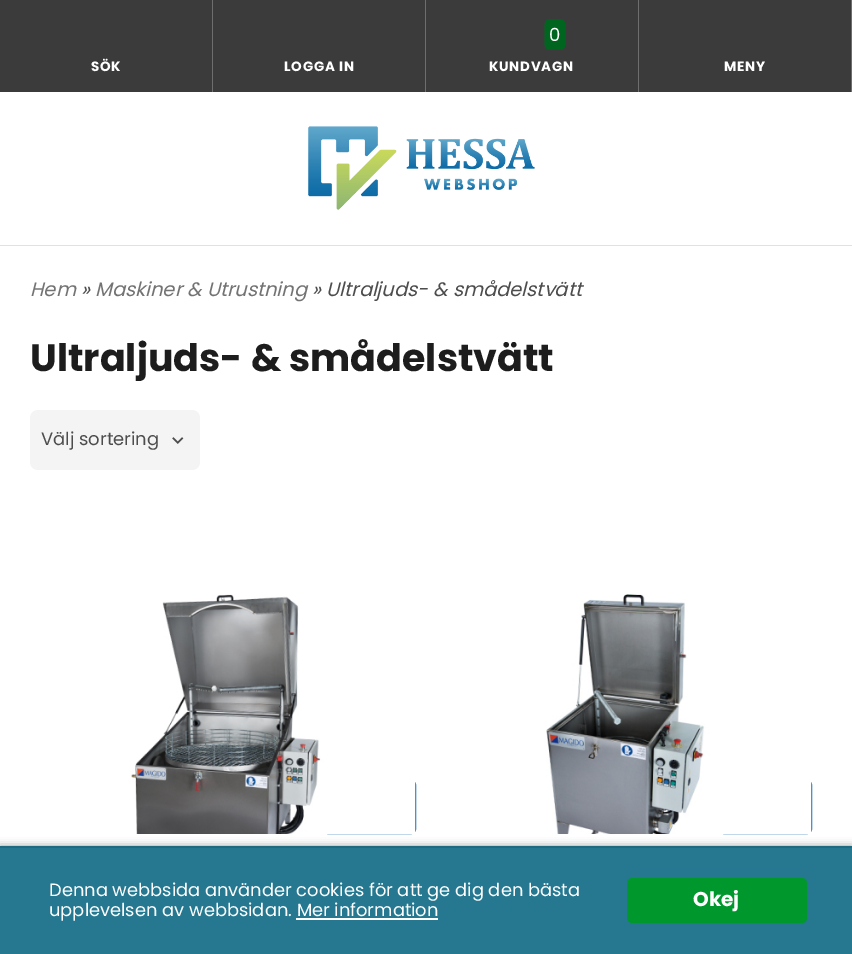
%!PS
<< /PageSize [852 954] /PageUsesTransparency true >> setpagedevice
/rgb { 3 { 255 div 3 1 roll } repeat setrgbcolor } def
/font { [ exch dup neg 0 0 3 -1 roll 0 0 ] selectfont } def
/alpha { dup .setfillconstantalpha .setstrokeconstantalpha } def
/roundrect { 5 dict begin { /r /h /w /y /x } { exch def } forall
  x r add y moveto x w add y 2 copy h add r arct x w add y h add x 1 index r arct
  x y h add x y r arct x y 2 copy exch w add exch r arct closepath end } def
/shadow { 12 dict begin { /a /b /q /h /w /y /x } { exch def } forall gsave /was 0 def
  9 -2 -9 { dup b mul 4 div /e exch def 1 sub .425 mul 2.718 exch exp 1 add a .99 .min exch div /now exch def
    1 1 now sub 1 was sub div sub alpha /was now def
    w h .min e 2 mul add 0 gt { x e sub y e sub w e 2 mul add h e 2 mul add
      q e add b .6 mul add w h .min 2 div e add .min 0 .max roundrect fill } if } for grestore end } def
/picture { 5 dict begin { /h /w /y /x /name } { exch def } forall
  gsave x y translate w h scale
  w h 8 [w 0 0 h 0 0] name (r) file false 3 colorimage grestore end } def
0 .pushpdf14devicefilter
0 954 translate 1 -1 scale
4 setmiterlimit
225 225 225 rgb
0 0 852 954 rectfill
[
  [0 0 212 92 59 59 59]
  [212 0 1 92 110 110 110]
  [213 0 212 92 59 59 59]
  [425 0 1 92 110 110 110]
  [426 0 212 92 59 59 59]
  [638 0 1 92 110 110 110]
] { aload pop rgb rectfill } forall
0 102 31 rgb
548.5 19.5 moveto 561.5 19.5 lineto 563.5 19.5 565.5 22 565.5 25.5 curveto 565.5 43.5 lineto 565.5 47 563.5 49.5 561.5 49.5 curveto 548.5 49.5 lineto 546.5 49.5 544.5 47 544.5 43.5 curveto 544.5 25.5 lineto 544.5 22 546.5 19.5 548.5 19.5 curveto closepath fill
[
  [639 0 212 92 59 59 59]
  [851 0 1 92 110 110 110]
  [0 92 852 153 255 255 255]
] { aload pop rgb rectfill } forall
(img/1.rgb) 308 126 227 84 picture
0 246 852 600 rectfill
244 244 244 rgb
30 410 170 60 8 roundrect fill
(img/2.rgb) 172 437 12 7 picture
19 110 177 rgb
2 setlinewidth
324 781 91 52 4 roundrect stroke
(img/3.rgb) 41 594 375 240 picture
720 781 91 52 4 roundrect stroke
(img/4.rgb) 437 594 375 240 picture
153 153 153 rgb
0 846 852 108 0 4 1 shadow
[
  [0 848 852 106 37 120 144]
  [0 846 852 2 32 106 127]
  [296 918 142 2 255 255 255]
] { aload pop rgb rectfill } forall
0 152 45 rgb
627 878 180 45 5 roundrect fill
/Poppins-Bold 13.5 font
255 255 255 rgb
91 71 moveto 0.75 0 (SÖK) ashow
284 71 moveto 0.75 0 (LOGGA IN) ashow
/Poppins-Regular 18 font
549 41 moveto (0) show
/Poppins-Bold 13.5 font
489 71 moveto 0.75 0 (KUNDVAGN) ashow
724 71 moveto 0.75 0 (MENY) ashow
/Poppins-Italic 19.5 font
115 115 115 rgb
30 296 moveto (Hem) show
77 77 77 rgb
81 296 moveto (») show
115 115 115 rgb
95 296 moveto (Maskiner & Utrustning) show
77 77 77 rgb
312 296 moveto (» Ultraljuds- & smådelstvätt) show
/Poppins-Bold 38 font
29 29 29 rgb
30 371 moveto (Ultraljuds- & smådelstvätt) show
/Poppins-Regular 18 font
77 77 77 rgb
41 445 moveto (Välj sortering) show
/Poppins-Regular 17.85 font
255 255 255 rgb
49 896 moveto (Denna webbsida använder cookies för att ge dig den bästa) show
49 916 moveto (upplevelsen av webbsidan. Mer information) show
/Poppins-Bold 20 font
693 906 moveto (Okej) show
.poppdf14devicefilter showpage
